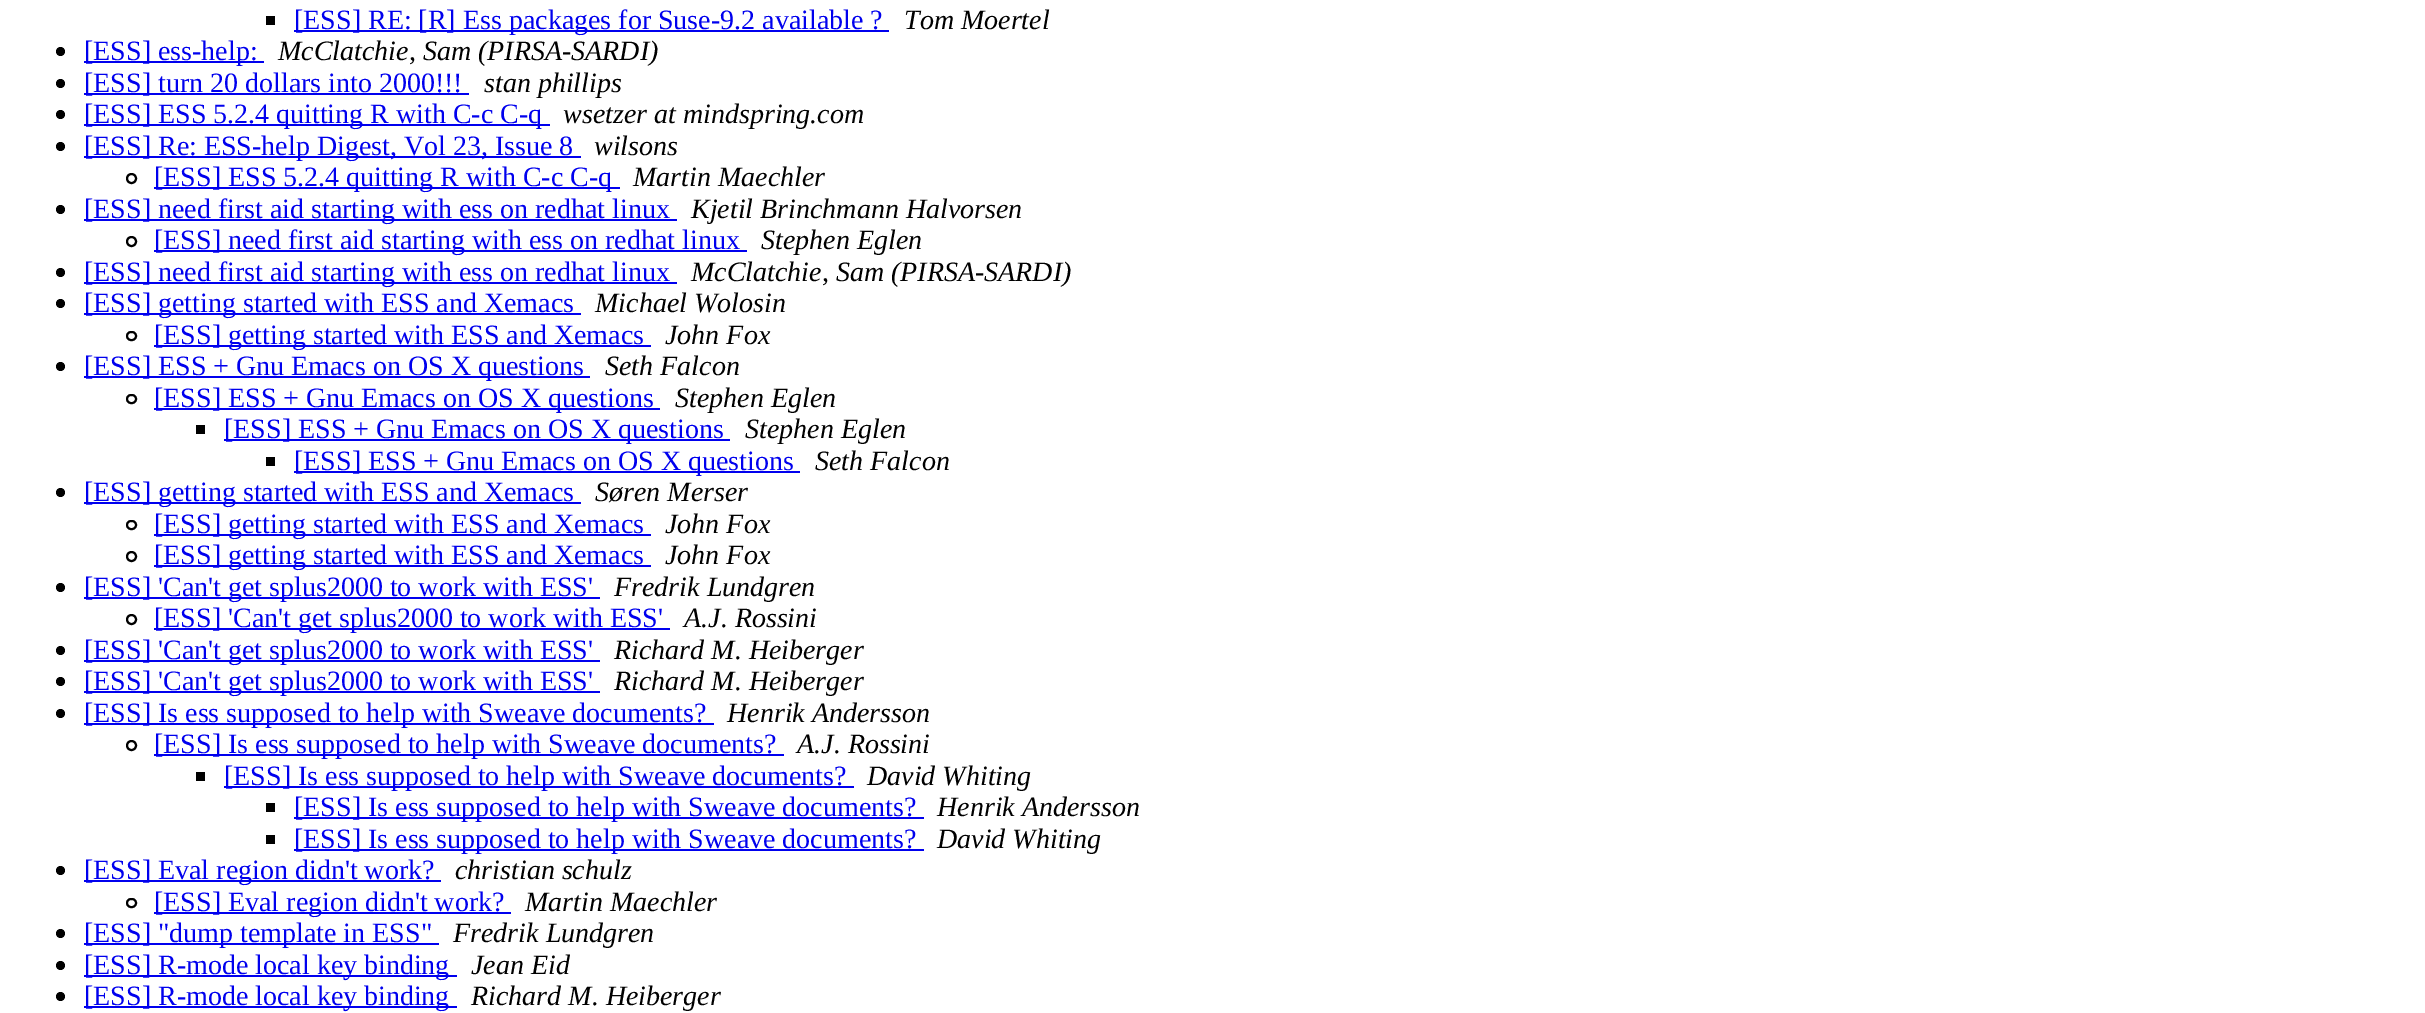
%!PS
<< /PageSize [2425 1013] >> setpagedevice
/rgb { 3 { 255 div 3 1 roll } repeat setrgbcolor } def
/font { [ exch dup neg 0 0 3 -1 roll 0 0 ] selectfont } def
/circle { newpath 0 360 arc closepath } def
/roundrect { 5 dict begin { /r /h /w /y /x } { exch def } forall
  x r add y moveto x w add y 2 copy h add r arct x w add y h add x 1 index r arct
  x y h add x y r arct x y 2 copy exch w add exch r arct closepath end } def
0 1013 translate 1 -1 scale
4 setmiterlimit
255 255 255 rgb
0 0 2425 1013 rectfill
0 0 0 rgb
266 16 9 9 rectfill
0 0 238 rgb
294 30 595 2 rectfill
0 0 0 rgb
60.5 51.5 4.5 circle fill
0 0 238 rgb
84 61 180 2 rectfill
0 0 0 rgb
60.5 83.5 4.5 circle fill
0 0 238 rgb
84 93 385 2 rectfill
0 0 0 rgb
60.5 114.5 4.5 circle fill
0 0 238 rgb
84 124 466 2 rectfill
0 0 0 rgb
60.5 146.5 4.5 circle fill
0 0 238 rgb
84 156 497 2 rectfill
0 0 0 rgb
2 setlinewidth
131.5 178.5 4.5 circle stroke
0 0 238 rgb
154 187 466 2 rectfill
0 0 0 rgb
60.5 209.5 4.5 circle fill
0 0 238 rgb
84 219 593 2 rectfill
0 0 0 rgb
131.5 241.5 4.5 circle stroke
0 0 238 rgb
154 250 593 2 rectfill
0 0 0 rgb
60.5 272.5 4.5 circle fill
0 0 238 rgb
84 282 593 2 rectfill
0 0 0 rgb
60.5 303.5 4.5 circle fill
0 0 238 rgb
84 313 497 2 rectfill
0 0 0 rgb
127 332 9 8 4 roundrect stroke
0 0 238 rgb
154 345 497 2 rectfill
0 0 0 rgb
60.5 366.5 4.5 circle fill
0 0 238 rgb
84 376 506 2 rectfill
0 0 0 rgb
127 395 9 8 4 roundrect stroke
[
  [154 408 506 2 0 0 238]
  [196 425 9 9 0 0 0]
  [224 439 506 2 0 0 238]
  [266 457 9 9 0 0 0]
  [294 471 506 2 0 0 238]
] { aload pop rgb rectfill } forall
0 0 0 rgb
60.5 492.5 4.5 circle fill
0 0 238 rgb
84 502 497 2 rectfill
0 0 0 rgb
127 521 9 8 4 roundrect stroke
0 0 238 rgb
154 534 497 2 rectfill
0 0 0 rgb
131.5 556.5 4.5 circle stroke
0 0 238 rgb
154 565 497 2 rectfill
0 0 0 rgb
60.5 587.5 4.5 circle fill
0 0 238 rgb
84 597 516 2 rectfill
0 0 0 rgb
131.5 619.5 4.5 circle stroke
0 0 238 rgb
154 628 516 2 rectfill
0 0 0 rgb
60.5 650.5 4.5 circle fill
0 0 238 rgb
84 660 516 2 rectfill
0 0 0 rgb
60.5 681.5 4.5 circle fill
0 0 238 rgb
84 691 516 2 rectfill
0 0 0 rgb
60.5 713.5 4.5 circle fill
0 0 238 rgb
84 723 630 2 rectfill
0 0 0 rgb
131.5 745.5 4.5 circle stroke
[
  [154 754 630 2 0 0 238]
  [196 772 9 9 0 0 0]
  [224 786 630 2 0 0 238]
  [266 803 9 9 0 0 0]
  [294 817 630 2 0 0 238]
  [266 835 9 9 0 0 0]
  [294 849 630 2 0 0 238]
] { aload pop rgb rectfill } forall
0 0 0 rgb
60.5 870.5 4.5 circle fill
0 0 238 rgb
84 880 357 2 rectfill
0 0 0 rgb
127 899 9 8 4 roundrect stroke
0 0 238 rgb
154 912 357 2 rectfill
0 0 0 rgb
60.5 933.5 4.5 circle fill
0 0 238 rgb
84 943 355 2 rectfill
0 0 0 rgb
60.5 965.5 4.5 circle fill
0 0 238 rgb
84 975 373 2 rectfill
0 0 0 rgb
60.5 996.5 4.5 circle fill
0 0 238 rgb
84 1006 373 2 rectfill
/LiberationSerif-Regular 28 font
294 29 moveto ([ESS] RE: [R] Ess packages for Suse-9.2 available ?) show
/LiberationSerif-Italic 28 font
0 0 0 rgb
904 29 moveto (Tom Moertel) show
/LiberationSerif-Regular 28 font
0 0 238 rgb
84 60 moveto ([ESS] ess-help:) show
/LiberationSerif-Italic 28 font
0 0 0 rgb
278 60 moveto (McClatchie, Sam \(PIRSA-SARDI\)) show
/LiberationSerif-Regular 28 font
0 0 238 rgb
84 92 moveto ([ESS] turn 20 dollars into 2000!!!) show
/LiberationSerif-Italic 28 font
0 0 0 rgb
484 92 moveto (stan phillips) show
/LiberationSerif-Regular 28 font
0 0 238 rgb
84 123 moveto ([ESS] ESS 5.2.4 quitting R with C-c C-q) show
/LiberationSerif-Italic 28 font
0 0 0 rgb
563 123 moveto (wsetzer at mindspring.com) show
/LiberationSerif-Regular 28 font
0 0 238 rgb
84 155 moveto ([ESS] Re: ESS-help Digest, Vol 23, Issue 8) show
/LiberationSerif-Italic 28 font
0 0 0 rgb
594 155 moveto (wilsons) show
/LiberationSerif-Regular 28 font
0 0 238 rgb
154 186 moveto ([ESS] ESS 5.2.4 quitting R with C-c C-q) show
/LiberationSerif-Italic 28 font
0 0 0 rgb
633 186 moveto (Martin Maechler) show
/LiberationSerif-Regular 28 font
0 0 238 rgb
84 218 moveto ([ESS] need first aid starting with ess on redhat linux) show
/LiberationSerif-Italic 28 font
0 0 0 rgb
691 218 moveto (Kjetil Brinchmann Halvorsen) show
/LiberationSerif-Regular 28 font
0 0 238 rgb
154 249 moveto ([ESS] need first aid starting with ess on redhat linux) show
/LiberationSerif-Italic 28 font
0 0 0 rgb
761 249 moveto (Stephen Eglen) show
/LiberationSerif-Regular 28 font
0 0 238 rgb
84 281 moveto ([ESS] need first aid starting with ess on redhat linux) show
/LiberationSerif-Italic 28 font
0 0 0 rgb
691 281 moveto (McClatchie, Sam \(PIRSA-SARDI\)) show
/LiberationSerif-Regular 28 font
0 0 238 rgb
84 312 moveto ([ESS] getting started with ESS and Xemacs) show
/LiberationSerif-Italic 28 font
0 0 0 rgb
595 312 moveto (Michael Wolosin) show
/LiberationSerif-Regular 28 font
0 0 238 rgb
154 344 moveto ([ESS] getting started with ESS and Xemacs) show
/LiberationSerif-Italic 28 font
0 0 0 rgb
665 344 moveto (John Fox) show
/LiberationSerif-Regular 28 font
0 0 238 rgb
84 375 moveto ([ESS] ESS + Gnu Emacs on OS X questions) show
/LiberationSerif-Italic 28 font
0 0 0 rgb
605 375 moveto (Seth Falcon) show
/LiberationSerif-Regular 28 font
0 0 238 rgb
154 407 moveto ([ESS] ESS + Gnu Emacs on OS X questions) show
/LiberationSerif-Italic 28 font
0 0 0 rgb
675 407 moveto (Stephen Eglen) show
/LiberationSerif-Regular 28 font
0 0 238 rgb
224 438 moveto ([ESS] ESS + Gnu Emacs on OS X questions) show
/LiberationSerif-Italic 28 font
0 0 0 rgb
745 438 moveto (Stephen Eglen) show
/LiberationSerif-Regular 28 font
0 0 238 rgb
294 470 moveto ([ESS] ESS + Gnu Emacs on OS X questions) show
/LiberationSerif-Italic 28 font
0 0 0 rgb
815 470 moveto (Seth Falcon) show
/LiberationSerif-Regular 28 font
0 0 238 rgb
84 501 moveto ([ESS] getting started with ESS and Xemacs) show
/LiberationSerif-Italic 28 font
0 0 0 rgb
595 501 moveto (Søren Merser) show
/LiberationSerif-Regular 28 font
0 0 238 rgb
154 533 moveto ([ESS] getting started with ESS and Xemacs) show
/LiberationSerif-Italic 28 font
0 0 0 rgb
665 533 moveto (John Fox) show
/LiberationSerif-Regular 28 font
0 0 238 rgb
154 564 moveto ([ESS] getting started with ESS and Xemacs) show
/LiberationSerif-Italic 28 font
0 0 0 rgb
665 564 moveto (John Fox) show
/LiberationSerif-Regular 28 font
0 0 238 rgb
84 596 moveto ([ESS] 'Can't get splus2000 to work with ESS') show
/LiberationSerif-Italic 28 font
0 0 0 rgb
614 596 moveto (Fredrik Lundgren) show
/LiberationSerif-Regular 28 font
0 0 238 rgb
154 627 moveto ([ESS] 'Can't get splus2000 to work with ESS') show
/LiberationSerif-Italic 28 font
0 0 0 rgb
684 627 moveto (A.J. Rossini) show
/LiberationSerif-Regular 28 font
0 0 238 rgb
84 659 moveto ([ESS] 'Can't get splus2000 to work with ESS') show
/LiberationSerif-Italic 28 font
0 0 0 rgb
614 659 moveto (Richard M. Heiberger) show
/LiberationSerif-Regular 28 font
0 0 238 rgb
84 690 moveto ([ESS] 'Can't get splus2000 to work with ESS') show
/LiberationSerif-Italic 28 font
0 0 0 rgb
614 690 moveto (Richard M. Heiberger) show
/LiberationSerif-Regular 28 font
0 0 238 rgb
84 722 moveto ([ESS] Is ess supposed to help with Sweave documents?) show
/LiberationSerif-Italic 28 font
0 0 0 rgb
727 722 moveto (Henrik Andersson) show
/LiberationSerif-Regular 28 font
0 0 238 rgb
154 753 moveto ([ESS] Is ess supposed to help with Sweave documents?) show
/LiberationSerif-Italic 28 font
0 0 0 rgb
797 753 moveto (A.J. Rossini) show
/LiberationSerif-Regular 28 font
0 0 238 rgb
224 785 moveto ([ESS] Is ess supposed to help with Sweave documents?) show
/LiberationSerif-Italic 28 font
0 0 0 rgb
867 785 moveto (David Whiting) show
/LiberationSerif-Regular 28 font
0 0 238 rgb
294 816 moveto ([ESS] Is ess supposed to help with Sweave documents?) show
/LiberationSerif-Italic 28 font
0 0 0 rgb
937 816 moveto (Henrik Andersson) show
/LiberationSerif-Regular 28 font
0 0 238 rgb
294 848 moveto ([ESS] Is ess supposed to help with Sweave documents?) show
/LiberationSerif-Italic 28 font
0 0 0 rgb
937 848 moveto (David Whiting) show
/LiberationSerif-Regular 28 font
0 0 238 rgb
84 879 moveto ([ESS] Eval region didn't work?) show
/LiberationSerif-Italic 28 font
0 0 0 rgb
455 879 moveto (christian schulz) show
/LiberationSerif-Regular 28 font
0 0 238 rgb
154 911 moveto ([ESS] Eval region didn't work?) show
/LiberationSerif-Italic 28 font
0 0 0 rgb
525 911 moveto (Martin Maechler) show
/LiberationSerif-Regular 28 font
0 0 238 rgb
84 942 moveto ([ESS] "dump template in ESS") show
/LiberationSerif-Italic 28 font
0 0 0 rgb
453 942 moveto (Fredrik Lundgren) show
/LiberationSerif-Regular 28 font
0 0 238 rgb
84 974 moveto ([ESS] R-mode local key binding) show
/LiberationSerif-Italic 28 font
0 0 0 rgb
471 974 moveto (Jean Eid) show
/LiberationSerif-Regular 28 font
0 0 238 rgb
84 1005 moveto ([ESS] R-mode local key binding) show
/LiberationSerif-Italic 28 font
0 0 0 rgb
471 1005 moveto (Richard M. Heiberger) show
showpage
